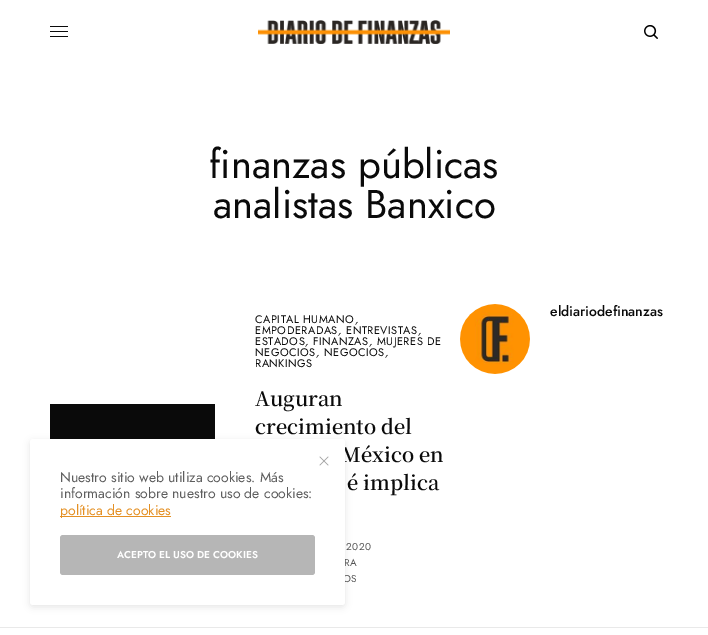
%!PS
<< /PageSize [708 635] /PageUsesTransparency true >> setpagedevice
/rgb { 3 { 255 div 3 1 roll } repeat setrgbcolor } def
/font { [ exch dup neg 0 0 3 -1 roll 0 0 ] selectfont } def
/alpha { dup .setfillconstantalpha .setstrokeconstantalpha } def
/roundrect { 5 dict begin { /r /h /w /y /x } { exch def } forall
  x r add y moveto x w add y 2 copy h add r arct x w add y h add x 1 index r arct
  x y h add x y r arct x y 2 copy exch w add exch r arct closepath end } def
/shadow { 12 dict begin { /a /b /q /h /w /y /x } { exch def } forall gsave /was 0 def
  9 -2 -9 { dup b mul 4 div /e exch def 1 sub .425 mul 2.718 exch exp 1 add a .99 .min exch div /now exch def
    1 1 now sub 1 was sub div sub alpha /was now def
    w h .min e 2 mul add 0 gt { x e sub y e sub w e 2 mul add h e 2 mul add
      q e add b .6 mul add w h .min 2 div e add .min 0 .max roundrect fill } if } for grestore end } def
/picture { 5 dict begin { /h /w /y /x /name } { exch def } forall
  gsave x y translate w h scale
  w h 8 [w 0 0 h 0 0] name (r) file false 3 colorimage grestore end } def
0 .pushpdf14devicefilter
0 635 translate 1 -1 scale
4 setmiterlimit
255 255 255 rgb
0 0 708 635 rectfill
10 10 10 rgb
50 26 18 1 0.5 roundrect fill
50 31 18 1 0.5 roundrect fill
50 36 18 1 0.5 roundrect fill
(img/1.rgb) 258 20 192 24 picture
(img/2.rgb) 644 25 14 14 picture
50 404 165 35 rectfill
0 0 0 rgb
30 441 315 166 3 3.5 0.1 shadow
(img/3.rgb) 460 304 70 70 picture
233 233 233 rgb
0 627 708 1 rectfill
/Jost-Regular 40 font
10 10 10 rgb
209 178 moveto (finanzas públicas) show
213 218 moveto (analistas Banxico) show
/Jost-Medium 14 font
550 316 moveto (eldiariodefinanzas) show
/Jost-Regular 11 font
255 323 moveto 0.5 0 (CAPITAL HUMANO) ashow
/Jost-Italic 11 font
355 323 moveto 0.5 0 (,) ashow
/Jost-Regular 11 font
255 334 moveto 0.5 0 (EMPODERADAS) ashow
/Jost-Italic 11 font
338 334 moveto 0.5 0 (,) ashow
/Jost-Regular 11 font
346 334 moveto 0.5 0 (ENTREVISTAS) ashow
/Jost-Italic 11 font
418 334 moveto 0.5 0 (,) ashow
/Jost-Regular 11 font
255 345 moveto 0.5 0 (ESTADOS) ashow
/Jost-Italic 11 font
305 345 moveto 0.5 0 (,) ashow
/Jost-Regular 11 font
313 345 moveto 0.5 0 (FINANZAS) ashow
/Jost-Italic 11 font
369 345 moveto 0.5 0 (,) ashow
/Jost-Regular 11 font
377 345 moveto 0.5 0 (MUJERES DE) ashow
255 356 moveto 0.5 0 (NEGOCIOS) ashow
/Jost-Italic 11 font
316 356 moveto 0.5 0 (,) ashow
/Jost-Regular 11 font
324 356 moveto 0.5 0 (NEGOCIOS) ashow
/Jost-Italic 11 font
385 356 moveto 0.5 0 (,) ashow
/Jost-Regular 11 font
255 367 moveto 0.5 0 (RANKINGS) ashow
/NotoSerifKR-SemiBold 20 font
[
  [(Auguran) 255 406]
  [(crecimiento del) 255 434]
  [(México en) 341 462]
  [(é implica) 347 490]
] { aload pop moveto show } forall
/Jost-Regular 10 font
84 84 84 rgb
346 550 moveto 0.5 0 (2020) ashow
344 566 moveto 0.5 0 (RA) ashow
343 582 moveto 0.5 0 (OS) ashow
255 255 255 rgb
30 439 315 166 3 roundrect fill
163 163 163 rgb
320 456.5 moveto 328.5 465 lineto 328 465.5 lineto 319.5 457 lineto closepath fill
319.5 465 moveto 328 456.5 lineto 328.5 457 lineto 320 465.5 lineto closepath fill
182 182 182 rgb
60 535 255 40 3 roundrect fill
/Jost-SemiBold 10 font
255 255 255 rgb
117 558 moveto (ACEPTO EL USO DE COOKIES) show
228 144 36 rgb
60 516 111 1 rectfill
/Jost-Regular 14 font
60 515 moveto (política de cookies) show
94 94 94 rgb
60 498 moveto (información sobre nuestro uso de cookies:) show
60 482 moveto (Nuestro sitio web utiliza cookies. Más) show
.poppdf14devicefilter showpage
